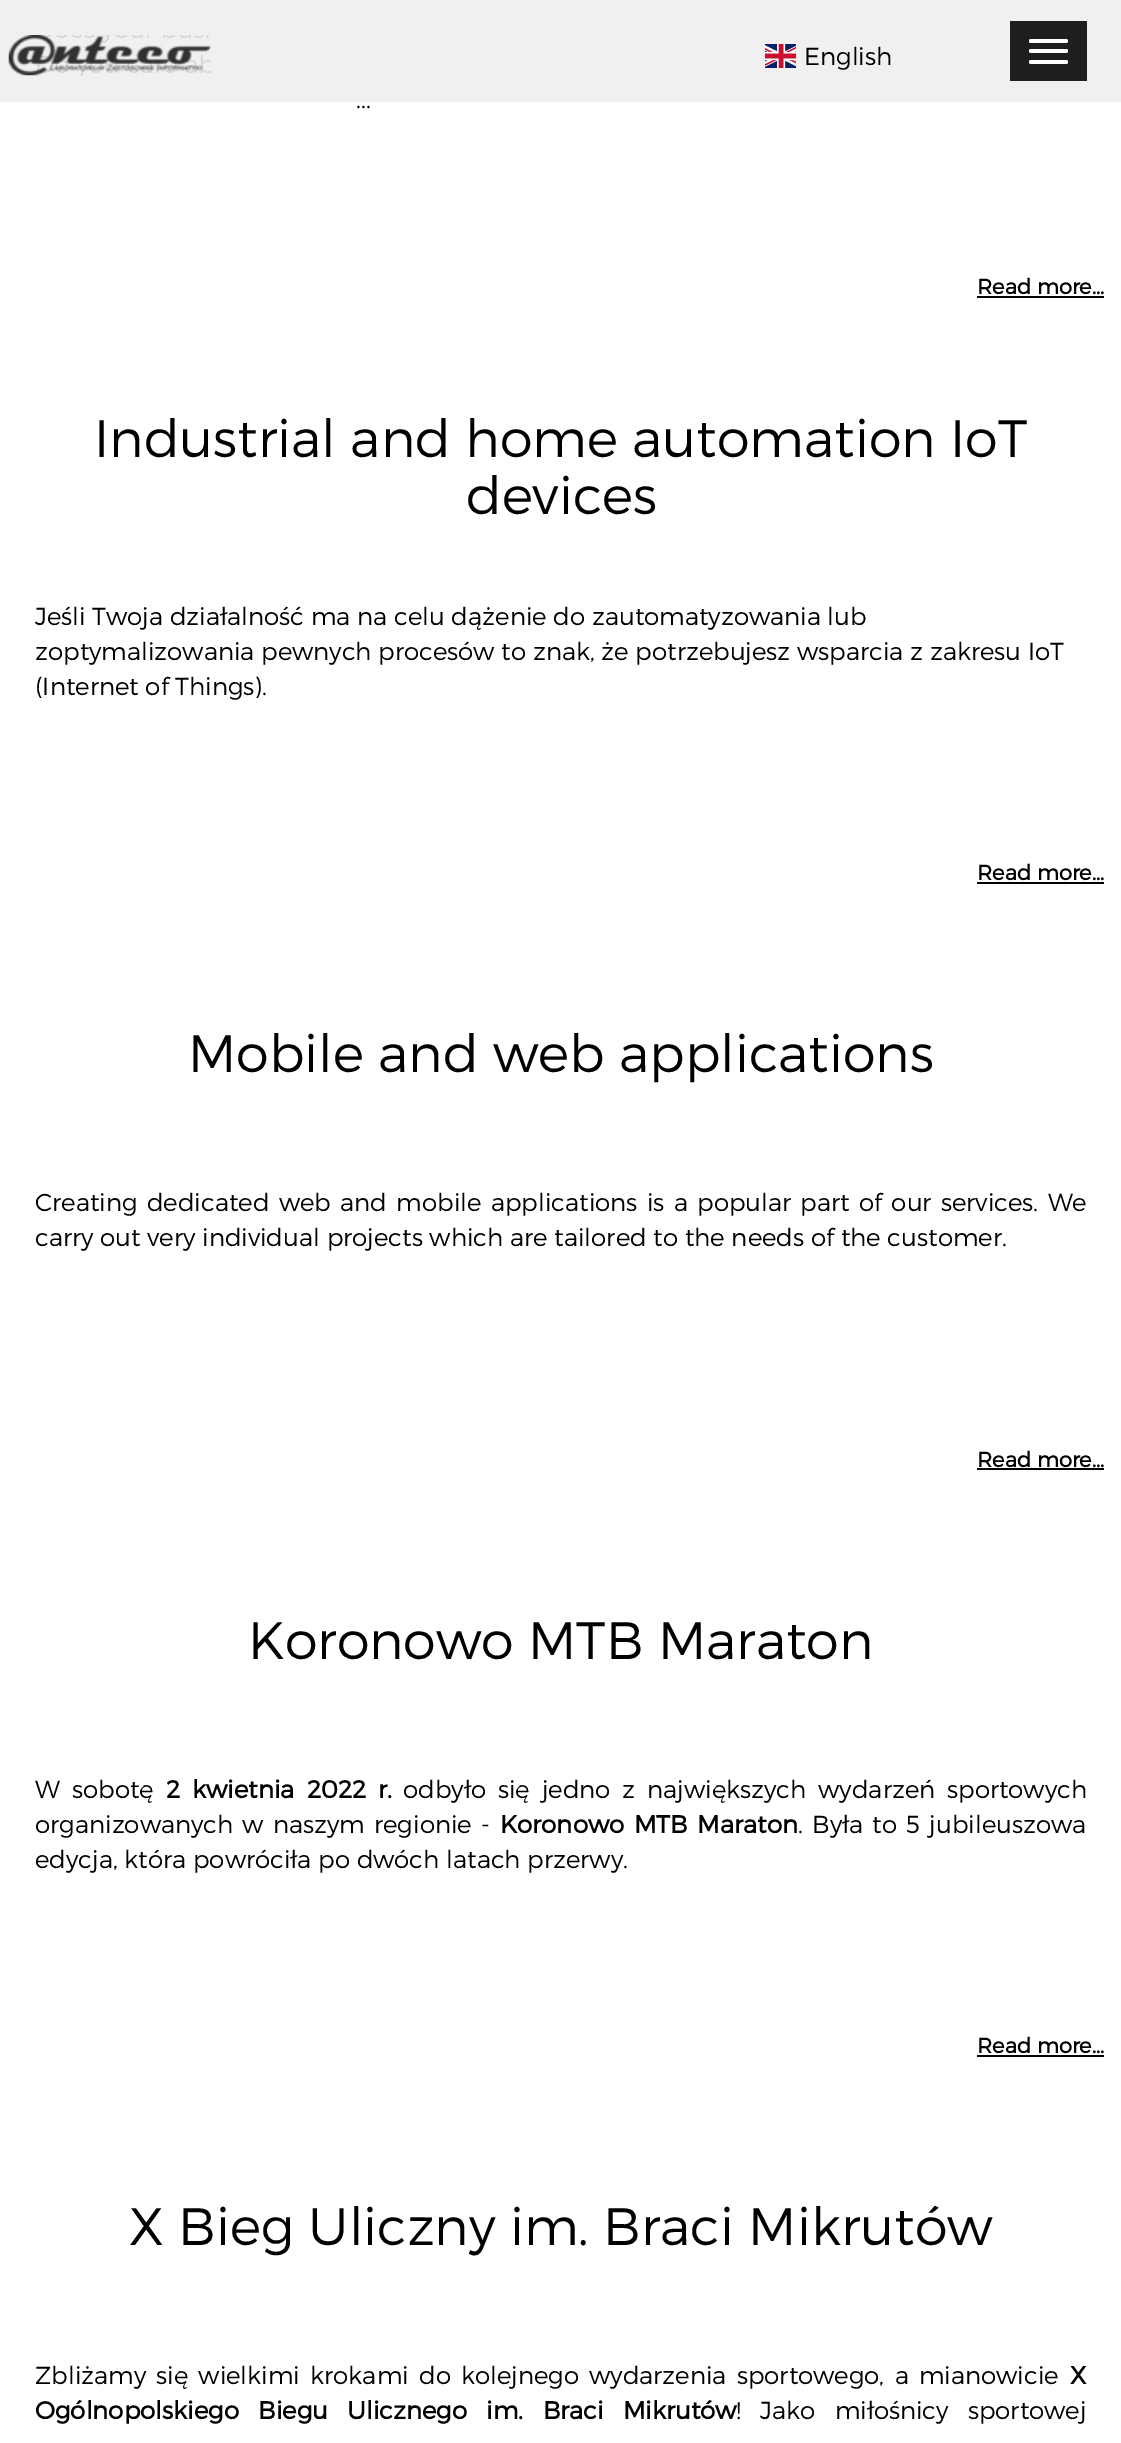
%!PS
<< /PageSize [1121 2443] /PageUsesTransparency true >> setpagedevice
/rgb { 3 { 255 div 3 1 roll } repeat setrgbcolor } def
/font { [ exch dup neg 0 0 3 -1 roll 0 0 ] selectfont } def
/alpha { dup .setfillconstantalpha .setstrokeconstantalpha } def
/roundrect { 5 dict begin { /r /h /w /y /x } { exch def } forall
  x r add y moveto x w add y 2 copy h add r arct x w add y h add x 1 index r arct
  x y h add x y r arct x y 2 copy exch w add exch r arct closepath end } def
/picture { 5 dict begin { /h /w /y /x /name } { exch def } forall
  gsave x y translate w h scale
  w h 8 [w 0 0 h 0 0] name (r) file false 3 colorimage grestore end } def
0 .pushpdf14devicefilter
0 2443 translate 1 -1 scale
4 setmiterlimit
255 255 255 rgb
0 0 1121 2443 rectfill
0.9 alpha
238 238 238 rgb
0 0 1121 102 rectfill
1 alpha
(img/1.rgb) 8 35 203 41 picture
(img/2.rgb) 765 44 31 24 picture
30 30 30 rgb
1010 21 77 60 rectfill
255 255 255 rgb
1029 39 39 4 2 roundrect fill
1029 49 39 4 2 roundrect fill
1029 60 39 4 2 roundrect fill
[
  [977 296 127 2 0 0 0]
  [977 882 127 2 0 0 0]
  [977 1468 127 2 0 0 0]
  [977 2055 127 2 0 0 0]
] { aload pop rgb rectfill } forall
/Montserrat-Light 24.5 font
804 65 moveto (English) show
356 108 moveto (...) show
/Montserrat-Bold 21 font
977 294 moveto (Read more...) show
/Montserrat-Light 52.5 font
94 457 moveto (Industrial and home automation IoT) show
466 514 moveto (devices) show
/Montserrat-Light 24.5 font
[
  [(Jeśli Twoja działalność ma na celu dążenie do zautomatyzowania lub) 35 625]
  [(zoptymalizowania pewnych procesów to znak, że potrzebujesz wsparcia z zakresu IoT) 35 660]
  [(\(Internet of Things\).) 35 695]
] { aload pop moveto show } forall
/Montserrat-Bold 21 font
977 880 moveto (Read more...) show
/Montserrat-Light 52.5 font
188 1072 moveto (Mobile and web applications) show
/Montserrat-Light 24.5 font
35 1211 moveto 2.6 0 32 (Creating dedicated web and mobile applications is a popular part of our services. We) widthshow
35 1246 moveto (carry out very individual projects which are tailored to the needs of the customer.) show
/Montserrat-Bold 21 font
977 1467 moveto (Read more...) show
/Montserrat-Light 52.5 font
248 1659 moveto (Koronowo MTB Maraton) show
/Montserrat-Light 24.5 font
35 1798 moveto 5.25 0 32 (W sobotę) widthshow
/Montserrat-Bold 24.5 font
166 1798 moveto 5.25 0 32 (2 kwietnia 2022 r.) widthshow
/Montserrat-Light 24.5 font
403 1798 moveto 5.25 0 32 (odbyło się jedno z największych wydarzeń sportowych) widthshow
35 1833 moveto 2.5 0 32 (organizowanych w naszym regionie -) widthshow
/Montserrat-Bold 24.5 font
500 1833 moveto 3 0 32 (Koronowo MTB Maraton) widthshow
/Montserrat-Light 24.5 font
798 1833 moveto 2.5 0 32 (. Była to 5 jubileuszowa) widthshow
35 1868 moveto (edycja, która powróciła po dwóch latach przerwy.) show
/Montserrat-Bold 21 font
977 2053 moveto (Read more...) show
/Montserrat-Light 52.5 font
129 2245 moveto (X Bieg Uliczny im. Braci Mikrutów) show
/Montserrat-Light 24.5 font
35 2384 moveto 3.5 0 32 (Zbliżamy się wielkimi krokami do kolejnego wydarzenia sportowego, a mianowicie) widthshow
/Montserrat-Bold 24.5 font
1070 2384 moveto (X) show
35 2419 moveto 12.5 0 32 (Ogólnopolskiego Biegu Ulicznego im. Braci Mikrutów) widthshow
/Montserrat-Light 24.5 font
736 2419 moveto 12.5 0 32 (! Jako miłośnicy sportowej) widthshow
.poppdf14devicefilter showpage
